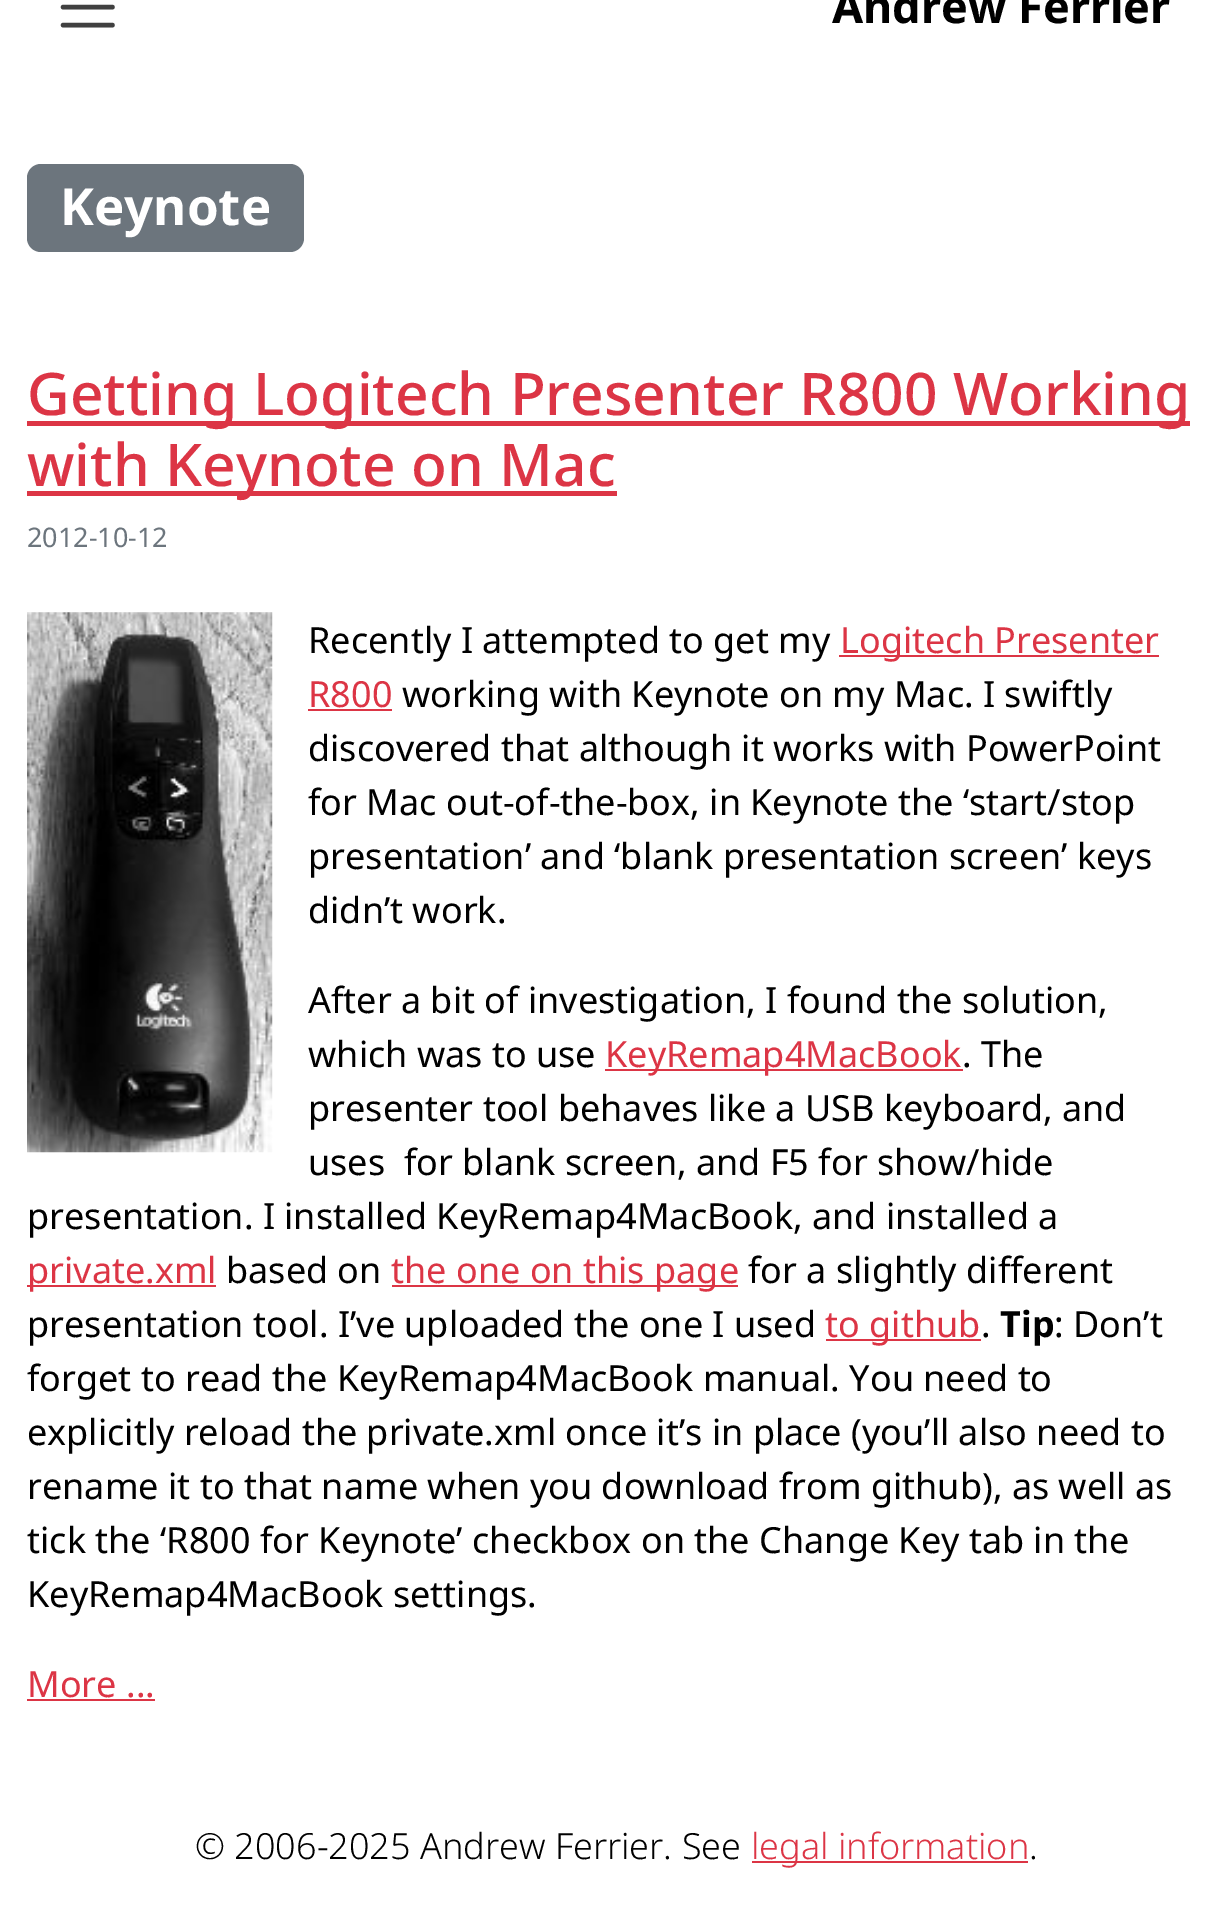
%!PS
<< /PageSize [1231 1918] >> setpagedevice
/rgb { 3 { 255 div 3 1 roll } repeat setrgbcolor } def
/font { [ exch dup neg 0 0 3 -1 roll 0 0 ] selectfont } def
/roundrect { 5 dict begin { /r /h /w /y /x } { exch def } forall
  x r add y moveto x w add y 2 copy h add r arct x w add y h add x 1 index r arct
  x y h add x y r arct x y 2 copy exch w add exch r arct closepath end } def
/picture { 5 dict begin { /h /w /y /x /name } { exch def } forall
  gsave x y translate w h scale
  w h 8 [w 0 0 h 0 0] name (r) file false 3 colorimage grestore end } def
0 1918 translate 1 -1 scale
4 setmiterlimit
255 255 255 rgb
0 0 1231 1918 rectfill
64 64 64 rgb
4.5 setlinewidth
1 setlinecap
63 -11 moveto 112.5 -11 lineto 63 7 moveto 112.5 7 lineto 63 25 moveto 112.5 25 lineto stroke
108 117 125 rgb
27 164 277 88 14 roundrect fill
220 53 69 rgb
27 421 1163 5 rectfill
27 491 590 5 rectfill
(img/1.rgb) 27 612 246 541 picture
[
  [839 655 320 2 220 53 69]
  [308 709 84 2 220 53 69]
  [605 1069 358 2 220 53 69]
  [27 1285 189 2 220 53 69]
  [392 1285 346 2 220 53 69]
  [826 1339 155 2 220 53 69]
  [27 1699 128 2 220 53 69]
  [752 1861 276 2 220 53 69]
] { aload pop rgb rectfill } forall
/NotoSans-Bold 45 font
0 0 0 rgb
832 23 moveto (Andrew Ferrier) show
/NotoSans-Bold 51 font
255 255 255 rgb
60 225 moveto (Keynote) show
/NotoSans-Medium 58.75 font
220 53 69 rgb
27 415 moveto (Getting Logitech Presenter R800 Working) show
27 486 moveto (with Keynote on Mac) show
/NotoSans-Regular 27 font
108 117 125 rgb
27 547 moveto (2012-10-12) show
/NotoSans-Regular 36 font
0 0 0 rgb
308 653 moveto (Recently I attempted to get my) show
220 53 69 rgb
840 653 moveto (Logitech Presenter) show
308 707 moveto (R800) show
0 0 0 rgb
[
  [(working with Keynote on my Mac. I swiftly) 402 707]
  [(discovered that although it works with PowerPoint) 308 761]
  [(for Mac out-of-the-box, in Keynote the ‘start/stop) 308 815]
  [(presentation’ and ‘blank presentation screen’ keys) 308 869]
  [(didn’t work.) 308 923]
  [(After a bit of investigation, I found the solution,) 308 1013]
  [(which was to use) 308 1067]
] { aload pop moveto show } forall
220 53 69 rgb
605 1067 moveto (KeyRemap4MacBook) show
0 0 0 rgb
[
  [(. The) 962 1067]
  [(presenter tool behaves like a USB keyboard, and) 308 1121]
  [(uses  for blank screen, and F5 for show/hide) 308 1175]
  [(presentation. I installed KeyRemap4MacBook, and installed a) 27 1229]
] { aload pop moveto show } forall
220 53 69 rgb
27 1283 moveto (private.xml) show
0 0 0 rgb
226 1283 moveto (based on) show
220 53 69 rgb
391 1283 moveto (the one on this page) show
0 0 0 rgb
748 1283 moveto (for a slightly different) show
27 1337 moveto (presentation tool. I’ve uploaded the one I used) show
220 53 69 rgb
825 1337 moveto (to github) show
0 0 0 rgb
981 1337 moveto (.) show
/NotoSans-Bold 36 font
1000 1337 moveto (Tip) show
/NotoSans-Regular 36 font
[
  [(: Don’t) 1054 1337]
  [(forget to read the KeyRemap4MacBook manual. You need to) 27 1391]
  [(explicitly reload the private.xml once it’s in place \(you’ll also need to) 27 1445]
  [(rename it to that name when you download from github\), as well as) 27 1499]
  [(tick the ‘R800 for Keynote’ checkbox on the Change Key tab in the) 27 1553]
  [(KeyRemap4MacBook settings.) 27 1607]
] { aload pop moveto show } forall
220 53 69 rgb
27 1697 moveto (More ...) show
/NotoSans-Light 36 font
0 0 0 rgb
195 1859 moveto (© 2006-2025 Andrew Ferrier. See) show
220 53 69 rgb
751 1859 moveto (legal information) show
0 0 0 rgb
1029 1859 moveto (.) show
showpage
